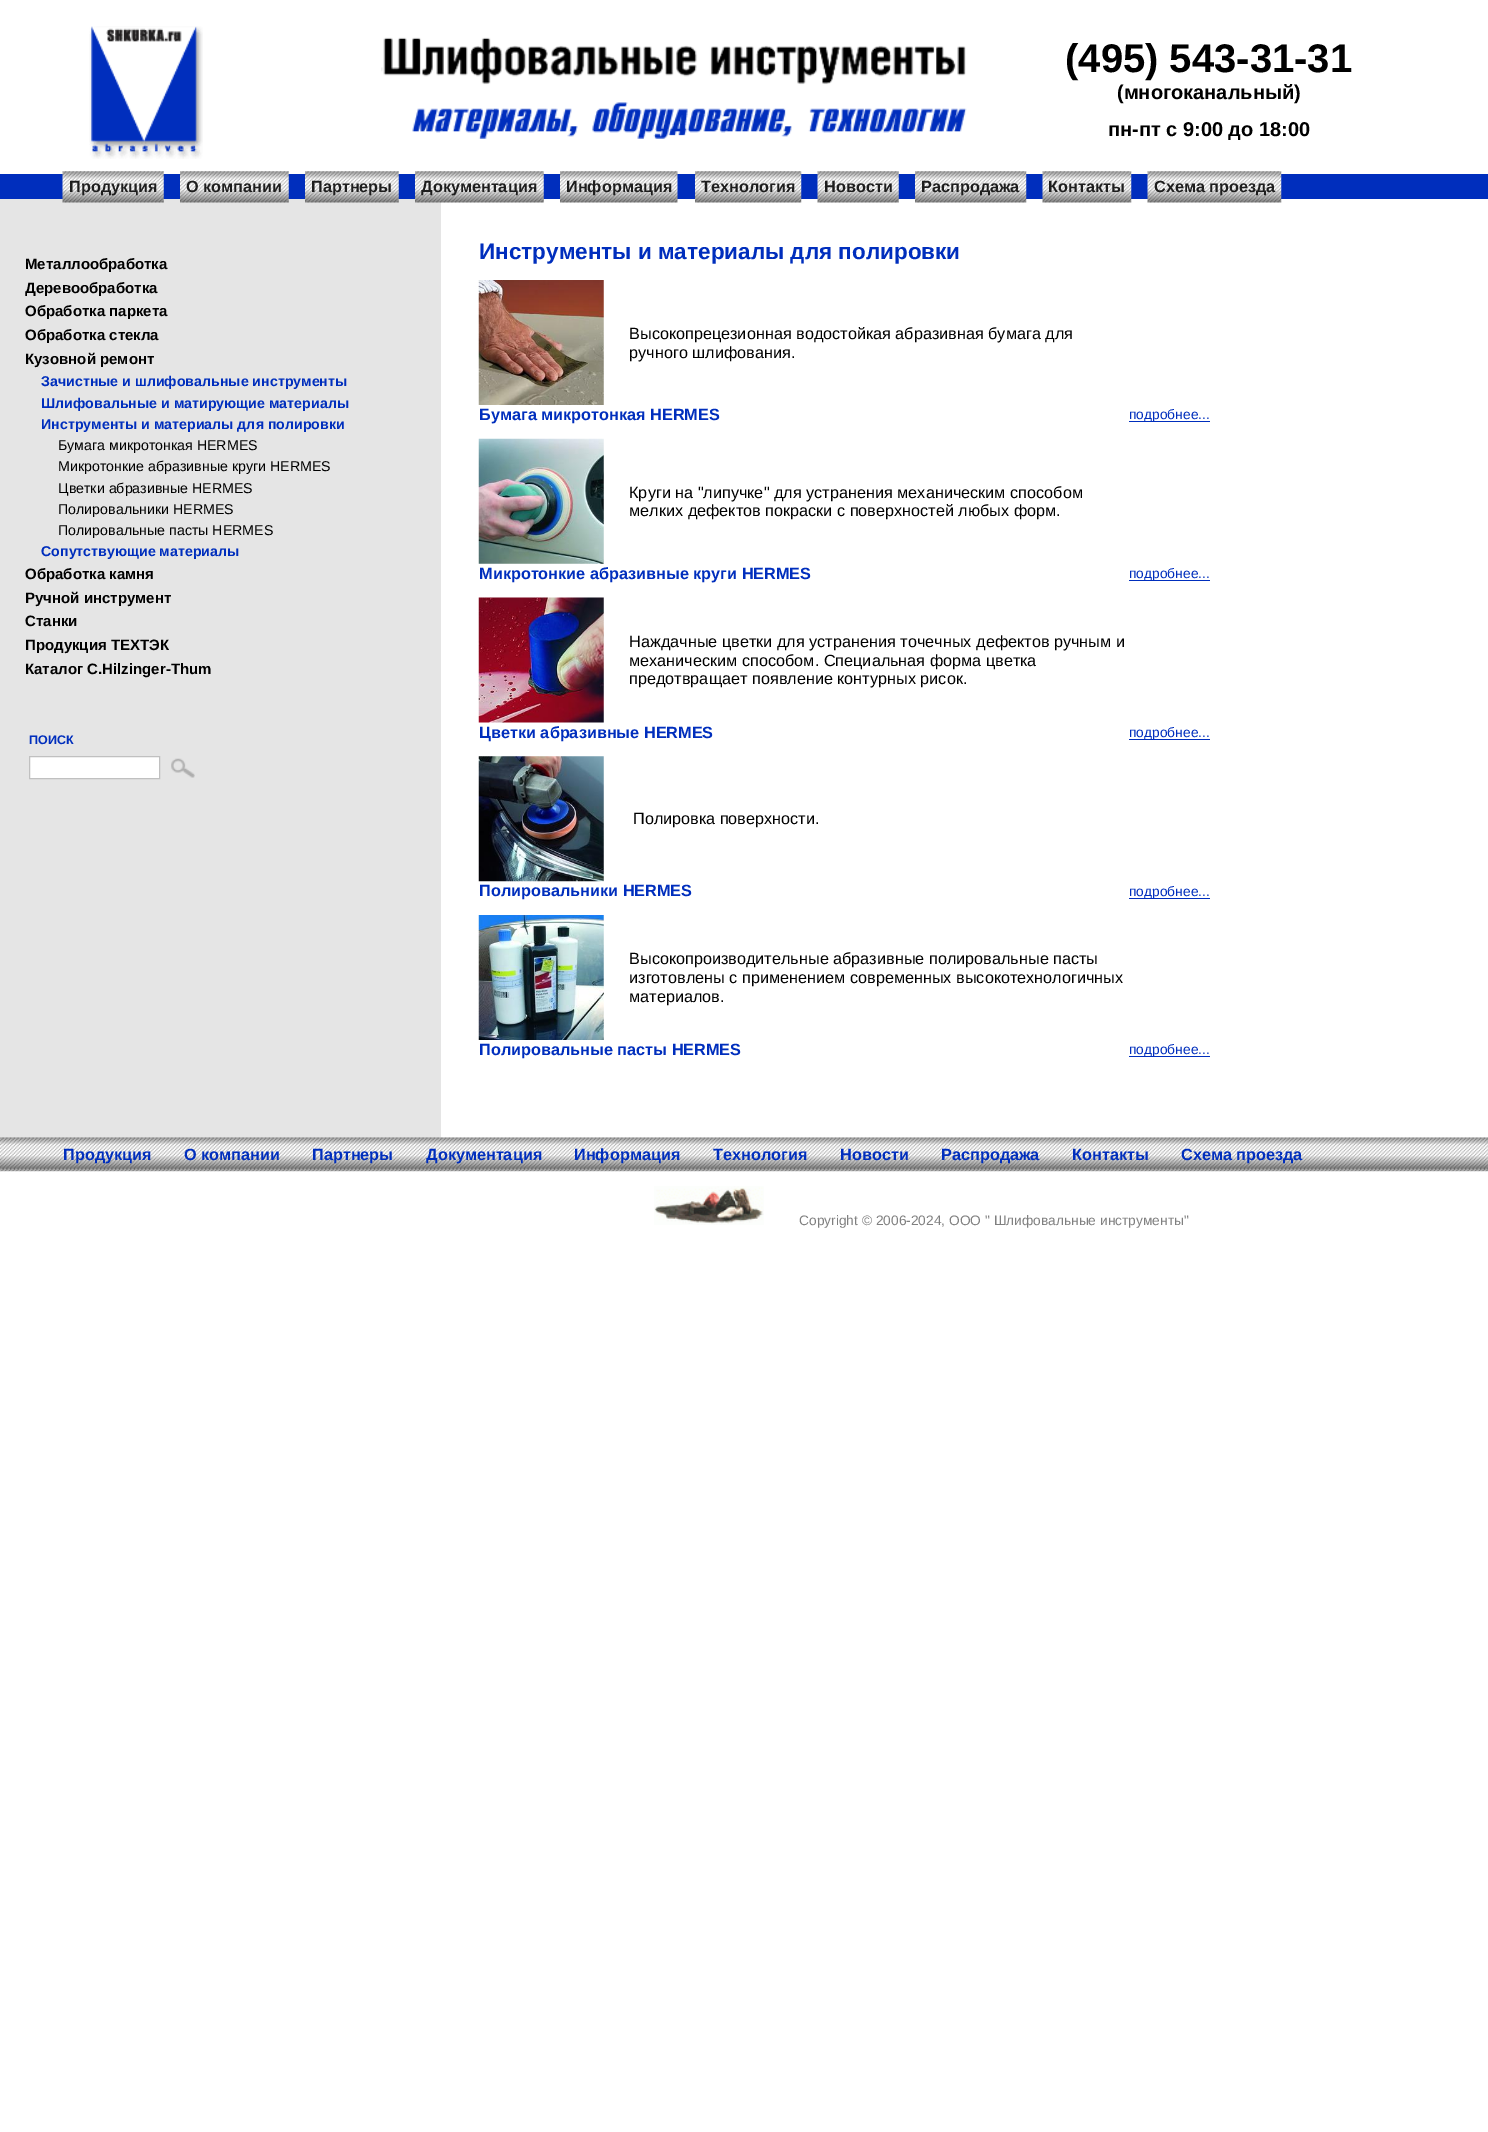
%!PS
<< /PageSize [1488 2132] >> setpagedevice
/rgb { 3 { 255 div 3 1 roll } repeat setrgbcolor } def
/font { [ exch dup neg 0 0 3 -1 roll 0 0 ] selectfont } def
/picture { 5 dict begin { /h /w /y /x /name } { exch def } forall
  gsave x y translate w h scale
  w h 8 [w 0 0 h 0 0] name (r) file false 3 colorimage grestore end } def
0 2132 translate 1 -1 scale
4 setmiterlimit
255 255 255 rgb
0 0 1488 2132 rectfill
(img/1.rgb) 89 26 114 133 picture
(img/2.rgb) 381 37 586 102 picture
0 46 189 rgb
0 174 1488 25 rectfill
229 229 229 rgb
0 199 416 939 rectfill
(img/3.rgb) 62 171 102 32 picture
(img/4.rgb) 180 171 109 32 picture
(img/5.rgb) 305 171 94 32 picture
416 202 25 936 rectfill
(img/6.rgb) 415 171 129 32 picture
(img/7.rgb) 560 171 118 32 picture
(img/8.rgb) 695 171 107 32 picture
(img/9.rgb) 817 171 82 32 picture
(img/10.rgb) 915 171 112 32 picture
(img/11.rgb) 1042 171 90 32 picture
(img/12.rgb) 1147 171 135 32 picture
(img/13.rgb) 478 280 126 125 picture
0 46 189 rgb
1129 421 81 1 rectfill
(img/14.rgb) 478 438 126 126 picture
1129 580 81 1 rectfill
(img/15.rgb) 478 597 126 126 picture
1129 739 81 1 rectfill
(img/16.rgb) 478 756 126 126 picture
1129 898 81 1 rectfill
(img/17.rgb) 478 915 126 125 picture
1129 1056 81 1 rectfill
255 255 255 rgb
29.5 756.5 moveto 159.5 756.5 lineto 159.5 778.5 lineto 29.5 778.5 lineto closepath gsave fill grestore
192 192 192 rgb
stroke
(img/18.rgb) 171 758 24 20 picture
(img/19.rgb) 0 1137 1488 35 picture
(img/20.rgb) 654 1186 110 39 picture
/LiberationSans-Bold 40 font
0 0 0 rgb
1065 72 moveto (\(495\) 543-31-31) show
/LiberationSans-Bold 20 font
1117 99 moveto (\(многоканальный\)) show
1108 136 moveto (пн-пт с 9:00 до 18:00) show
/LiberationSans-Bold 16.25 font
30 30 30 rgb
[
  [(Продукция) 69 192]
  [(О компании) 186 192]
  [(Партнеры) 311 192]
  [(Документация) 421 192]
  [(Информация) 566 192]
  [(Технология) 701 192]
  [(Новости) 824 192]
  [(Распродажа) 921 192]
  [(Контакты) 1048 192]
  [(Схема проезда) 1154 192]
] { aload pop moveto show } forall
/LiberationSans-Bold 22.5 font
0 46 189 rgb
479 259 moveto (Инструменты и материалы для полировки) show
/LiberationSans-Regular 16.25 font
0 0 0 rgb
629 339 moveto (Высокопрецезионная водостойкая абразивная бумага для) show
629 358 moveto (ручного шлифования.) show
/LiberationSans-Bold 16.25 font
0 46 189 rgb
479 420 moveto (Бумага микротонкая HERMES) show
/LiberationSans-Regular 13.75 font
1129 419 moveto (подробнее...) show
/LiberationSans-Regular 16.25 font
0 0 0 rgb
629 498 moveto (Круги на "липучке" для устранения механическим способом) show
629 516 moveto (мелких дефектов покраски с поверхностей любых форм.) show
/LiberationSans-Bold 16.25 font
0 46 189 rgb
479 579 moveto (Микротонкие абразивные круги HERMES) show
/LiberationSans-Regular 13.75 font
1129 578 moveto (подробнее...) show
/LiberationSans-Regular 16.25 font
0 0 0 rgb
[
  [(Наждачные цветки для устранения точечных дефектов ручным и) 629 647]
  [(механическим способом. Специальная форма цветка) 629 666]
  [(предотвращает появление контурных рисок.) 629 684]
] { aload pop moveto show } forall
/LiberationSans-Bold 16.25 font
0 46 189 rgb
479 738 moveto (Цветки абразивные HERMES) show
/LiberationSans-Regular 13.75 font
1129 737 moveto (подробнее...) show
/LiberationSans-Regular 16.25 font
0 0 0 rgb
633 824 moveto (Полировка поверхности.) show
/LiberationSans-Bold 16.25 font
0 46 189 rgb
479 896 moveto (Полировальники HERMES) show
/LiberationSans-Regular 13.75 font
1129 896 moveto (подробнее...) show
/LiberationSans-Regular 16.25 font
0 0 0 rgb
[
  [(Высокопроизводительные абразивные полировальные пасты) 629 964]
  [(изготовлены с применением современных высокотехнологичных) 629 983]
  [(материалов.) 629 1002]
] { aload pop moveto show } forall
/LiberationSans-Bold 16.25 font
0 46 189 rgb
479 1055 moveto (Полировальные пасты HERMES) show
/LiberationSans-Regular 13.75 font
1129 1054 moveto (подробнее...) show
/LiberationSans-Bold 15 font
0 0 0 rgb
[
  [(Металлообработка) 25 269]
  [(Деревообработка) 25 293]
  [(Обработка паркета) 25 316]
  [(Обработка стекла) 25 340]
  [(Кузовной ремонт) 25 364]
] { aload pop moveto show } forall
/LiberationSans-Bold 14.2 font
0 46 189 rgb
[
  [(Зачистные и шлифовальные инструменты) 41 386]
  [(Шлифовальные и матирующие материалы) 41 408]
  [(Инструменты и материалы для полировки) 41 429]
] { aload pop moveto show } forall
/LiberationSans-Regular 14.2 font
0 0 0 rgb
[
  [(Бумага микротонкая HERMES) 58 450]
  [(Микротонкие абразивные круги HERMES) 58 471]
  [(Цветки абразивные HERMES) 58 493]
  [(Полировальники HERMES) 58 514]
  [(Полировальные пасты HERMES) 58 535]
] { aload pop moveto show } forall
/LiberationSans-Bold 14.2 font
0 46 189 rgb
41 556 moveto (Сопутствующие материалы) show
/LiberationSans-Bold 15 font
0 0 0 rgb
[
  [(Обработка камня) 25 579]
  [(Ручной инструмент) 25 603]
  [(Станки) 25 626]
  [(Продукция ТЕХТЭК) 25 650]
  [(Каталог C.Hilzinger-Thum) 25 674]
] { aload pop moveto show } forall
/LiberationSans-Bold 12.5 font
0 46 189 rgb
29 744 moveto (ПОИСК) show
/LiberationSans-Bold 16.25 font
[
  [(Продукция) 63 1160]
  [(О компании) 184 1160]
  [(Партнеры) 312 1160]
  [(Документация) 426 1160]
  [(Информация) 574 1160]
  [(Технология) 713 1160]
  [(Новости) 840 1160]
  [(Распродажа) 941 1160]
  [(Контакты) 1072 1160]
  [(Схема проезда) 1181 1160]
] { aload pop moveto show } forall
/LiberationSans-Regular 13.75 font
128 128 128 rgb
799 1225 moveto (Copyright © 2006-2024, OOO " Шлифовальные инструменты") show
showpage
